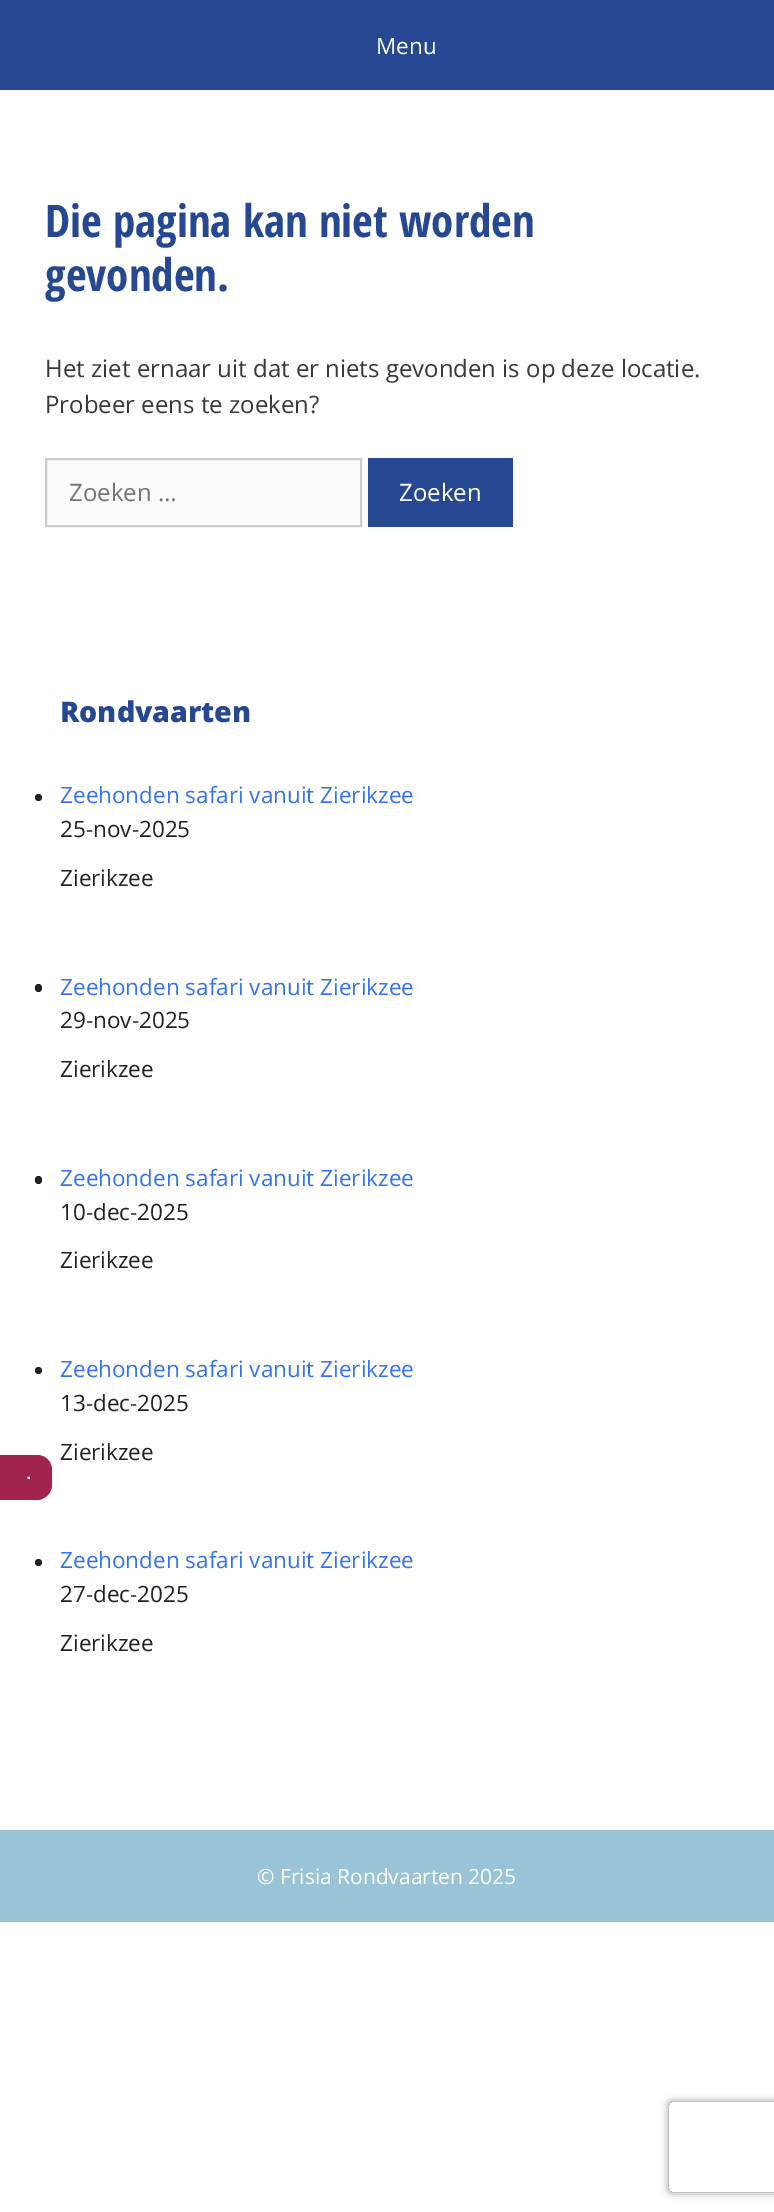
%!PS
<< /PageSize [774 2212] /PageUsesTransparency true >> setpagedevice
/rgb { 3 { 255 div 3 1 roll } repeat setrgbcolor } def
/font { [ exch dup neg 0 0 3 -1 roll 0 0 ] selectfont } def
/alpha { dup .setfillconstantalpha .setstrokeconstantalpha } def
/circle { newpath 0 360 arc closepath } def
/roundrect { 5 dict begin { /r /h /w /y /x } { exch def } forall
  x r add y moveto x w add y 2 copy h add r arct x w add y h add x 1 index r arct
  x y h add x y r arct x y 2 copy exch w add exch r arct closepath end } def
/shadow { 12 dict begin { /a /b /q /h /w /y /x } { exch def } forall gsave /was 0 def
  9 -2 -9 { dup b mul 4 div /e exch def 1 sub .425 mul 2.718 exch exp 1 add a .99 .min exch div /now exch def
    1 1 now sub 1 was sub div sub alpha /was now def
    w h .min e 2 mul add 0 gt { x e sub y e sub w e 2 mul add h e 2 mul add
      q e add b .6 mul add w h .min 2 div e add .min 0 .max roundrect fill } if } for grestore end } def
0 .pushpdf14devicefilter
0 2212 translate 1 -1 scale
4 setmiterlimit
255 255 255 rgb
0 0 774 2212 rectfill
38 72 146 rgb
0 0 774 90 rectfill
160 36 78 rgb
-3 1500 moveto -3 1455 lineto 37 1455 lineto 45 1455 52 1461 52 1470 curveto 52 1485 lineto 52 1493 45 1500 37 1500 curveto closepath fill
250 250 250 rgb
46 459 moveto 361 459 lineto 361 526 lineto 46 526 lineto closepath gsave fill grestore
204 204 204 rgb
2 setlinewidth
stroke
38 72 146 rgb
368 458 145 69 rectfill
33 33 33 rgb
38.5 797.5 3.5 circle fill
35 984 7 8 3.5 roundrect fill
35 1176 7 8 3.5 roundrect fill
38.5 1370.5 3.5 circle fill
38.5 1562.5 3.5 circle fill
153 195 214 rgb
0 1830 774 92 rectfill
gsave
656 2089 moveto 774 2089 lineto 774 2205 lineto 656 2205 lineto closepath 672 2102 moveto 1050 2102 lineto 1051.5 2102 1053 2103.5 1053 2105 curveto 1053 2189 lineto 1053 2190.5 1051.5 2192 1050 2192 curveto 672 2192 lineto 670.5 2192 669 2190.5 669 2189 curveto 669 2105 lineto 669 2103.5 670.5 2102 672 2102 curveto closepath eoclip newpath
128 128 128 rgb
669 2102 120 90 3 4 1 shadow
grestore
/OpenSans-Regular 22.5 font
255 255 255 rgb
376 54 moveto (Menu) show
/LiberationSans-Regular 22.5 font
gsave 30 1481 translate -90 rotate 0 0 moveto (.) show grestore
/OpenSansCondensed-Bold 45 font
38 72 146 rgb
45 237 moveto (Die pagina kan niet worden) show
45 291 moveto (gevonden.) show
/OpenSans-Regular 24 font
58 58 58 rgb
45 377 moveto (Het ziet ernaar uit dat er niets gevonden is op deze locatie.) show
45 413 moveto (Probeer eens te zoeken?) show
117 117 117 rgb
69 501 moveto (Zoeken …) show
255 255 255 rgb
399 501 moveto (Zoeken) show
/OpenSans-ExtraBold 28.5 font
38 72 146 rgb
60 722 moveto (Rondvaarten) show
/OpenSans-Regular 22.5 font
51 114 240 rgb
60 803 moveto (Zeehonden safari vanuit Zierikzee) show
33 33 33 rgb
60 837 moveto (25-nov-2025) show
60 886 moveto (Zierikzee) show
51 114 240 rgb
60 995 moveto (Zeehonden safari vanuit Zierikzee) show
33 33 33 rgb
60 1028 moveto (29-nov-2025) show
60 1077 moveto (Zierikzee) show
51 114 240 rgb
60 1186 moveto (Zeehonden safari vanuit Zierikzee) show
33 33 33 rgb
60 1220 moveto (10-dec-2025) show
60 1268 moveto (Zierikzee) show
51 114 240 rgb
60 1377 moveto (Zeehonden safari vanuit Zierikzee) show
33 33 33 rgb
60 1411 moveto (13-dec-2025) show
60 1460 moveto (Zierikzee) show
51 114 240 rgb
60 1568 moveto (Zeehonden safari vanuit Zierikzee) show
33 33 33 rgb
60 1602 moveto (27-dec-2025) show
60 1651 moveto (Zierikzee) show
/OpenSans-Regular 21 font
255 255 255 rgb
257 1884 moveto (© Frisia Rondvaarten 2025) show
.poppdf14devicefilter showpage
